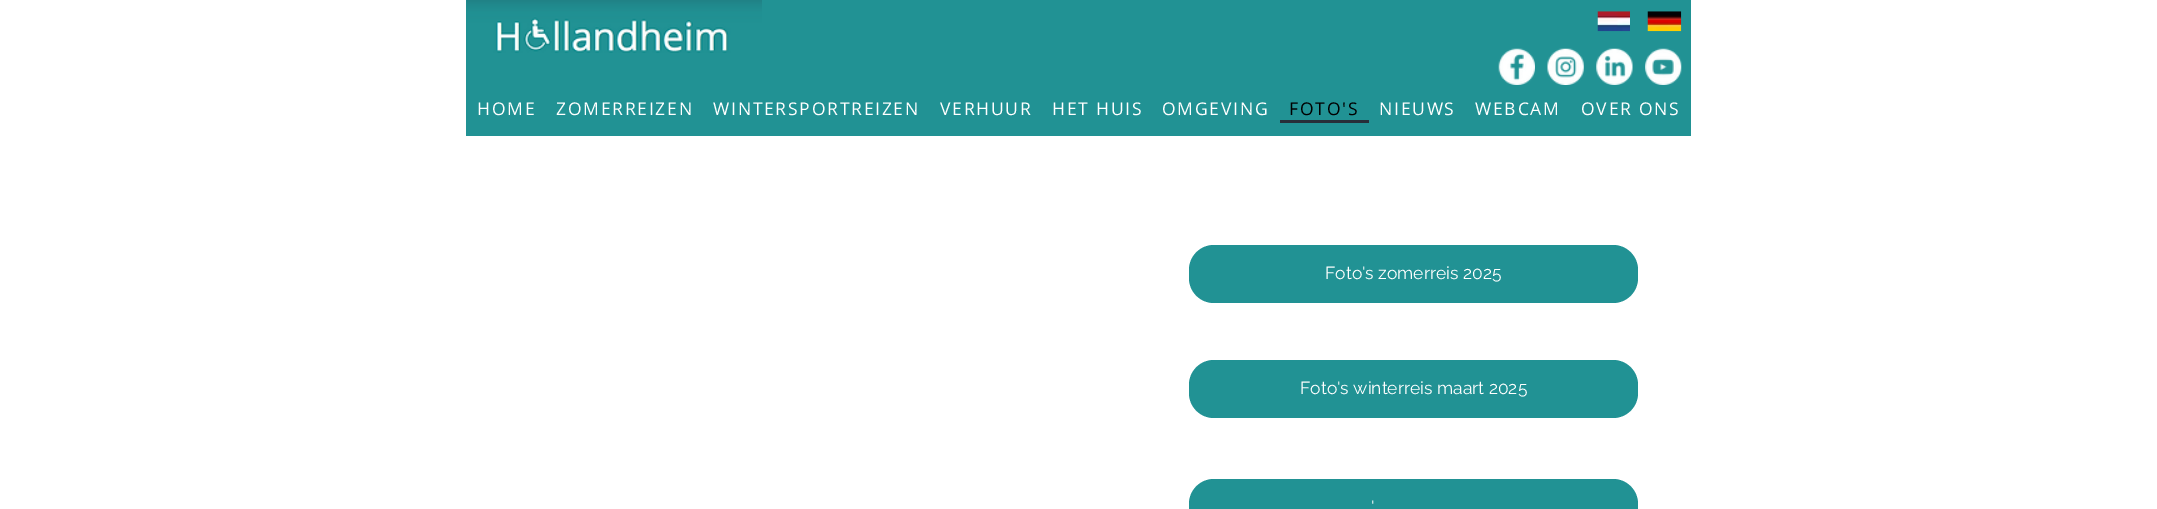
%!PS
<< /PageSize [2157 509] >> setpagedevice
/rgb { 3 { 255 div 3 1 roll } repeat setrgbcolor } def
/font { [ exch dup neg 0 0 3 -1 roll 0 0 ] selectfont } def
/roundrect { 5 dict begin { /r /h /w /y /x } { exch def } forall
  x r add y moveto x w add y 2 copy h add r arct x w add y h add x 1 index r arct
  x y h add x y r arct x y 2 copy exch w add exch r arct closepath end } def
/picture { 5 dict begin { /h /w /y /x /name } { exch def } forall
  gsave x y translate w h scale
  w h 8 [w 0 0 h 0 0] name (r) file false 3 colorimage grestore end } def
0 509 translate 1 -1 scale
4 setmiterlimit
255 255 255 rgb
0 0 2157 509 rectfill
33 146 148 rgb
466 0 1225 136 rectfill
(img/1.rgb) 466 0 296 53 picture
(img/2.rgb) 1597 11 33 21 picture
(img/3.rgb) 1647 11 35 21 picture
(img/4.rgb) 1498 48 37 37 picture
(img/5.rgb) 1547 48 37 37 picture
(img/6.rgb) 1596 48 37 37 picture
(img/7.rgb) 1645 48 37 37 picture
39 46 56 rgb
1280 120 89 3 rectfill
33 146 148 rgb
1189 245 449 58 25 roundrect fill
1189 360 449 58 25 roundrect fill
1189 479 449 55 25 roundrect fill
/OpenSans-Regular 17.5 font
255 255 255 rgb
477 115 moveto 1.75 0 (HOME) ashow
556 115 moveto 1.75 0 (ZOMERREIZEN) ashow
713 115 moveto 1.75 0 (WINTERSPORTREIZEN) ashow
940 115 moveto 1.75 0 (VERHUUR) ashow
1052 115 moveto 1.75 0 (HET HUIS) ashow
1162 115 moveto 1.75 0 (OMGEVING) ashow
0 0 0 rgb
1289 115 moveto 1.75 0 (FOTO'S) ashow
255 255 255 rgb
1379 115 moveto 1.75 0 (NIEUWS) ashow
1475 115 moveto 1.75 0 (WEBCAM) ashow
1581 115 moveto 1.75 0 (OVER ONS) ashow
/Raleway-Regular 17.5 font
[
  [(Foto's zomerreis 2025) 1325 279]
  [(Foto's winterreis maart 2025) 1300 394]
  [(') 1371 513]
] { aload pop moveto show } forall
showpage
